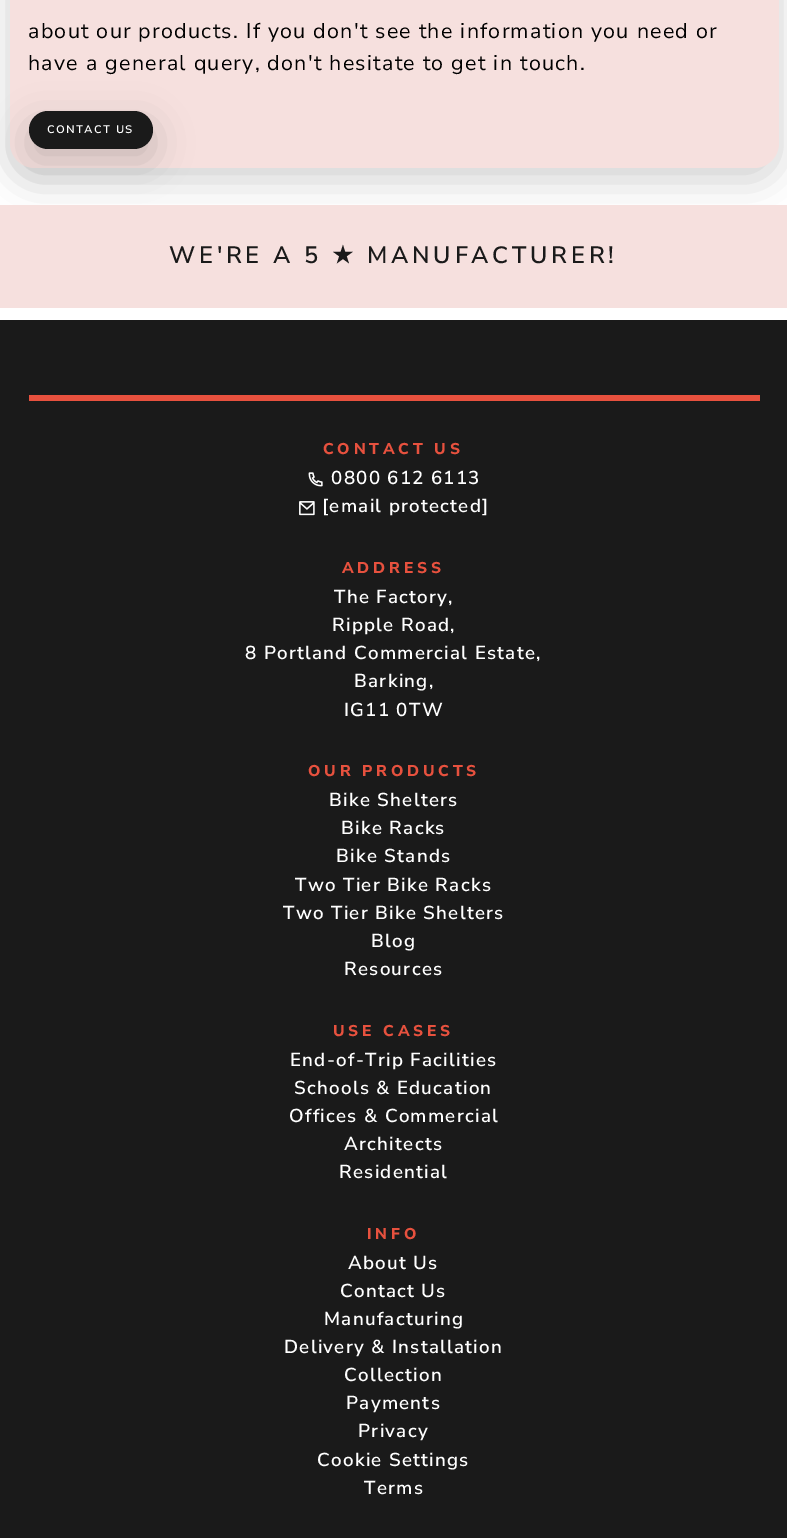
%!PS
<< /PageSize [787 1538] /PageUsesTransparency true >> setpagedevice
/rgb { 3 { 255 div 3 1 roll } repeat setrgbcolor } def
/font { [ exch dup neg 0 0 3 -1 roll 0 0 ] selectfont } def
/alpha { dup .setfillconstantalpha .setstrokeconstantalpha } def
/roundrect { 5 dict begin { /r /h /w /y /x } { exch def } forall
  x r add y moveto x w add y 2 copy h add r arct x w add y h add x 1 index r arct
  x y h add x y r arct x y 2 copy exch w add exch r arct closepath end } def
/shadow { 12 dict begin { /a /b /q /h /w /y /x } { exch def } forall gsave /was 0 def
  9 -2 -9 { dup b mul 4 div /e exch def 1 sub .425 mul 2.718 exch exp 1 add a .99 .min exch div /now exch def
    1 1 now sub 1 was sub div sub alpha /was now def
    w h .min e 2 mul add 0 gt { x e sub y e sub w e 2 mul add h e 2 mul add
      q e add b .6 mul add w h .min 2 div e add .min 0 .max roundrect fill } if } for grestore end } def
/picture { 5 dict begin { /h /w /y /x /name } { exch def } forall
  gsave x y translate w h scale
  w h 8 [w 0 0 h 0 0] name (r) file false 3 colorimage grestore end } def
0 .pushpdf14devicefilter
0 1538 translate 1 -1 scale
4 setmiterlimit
255 255 255 rgb
0 0 787 1538 rectfill
0 0 0 rgb
10 -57 769 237 25 19 0.18 shadow
246 224 222 rgb
10 -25 769 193 25 roundrect fill
0 0 0 rgb
29 124 124 37 18.5 19 0.18 shadow
26 26 26 rgb
29 111 124 38 19 roundrect fill
[
  [0 205 787 103 246 224 222]
  [0 320 787 1218 26 26 26]
  [29 395 731 6 231 81 62]
] { aload pop rgb rectfill } forall
(img/1.rgb) 308 472 15 15 picture
(img/2.rgb) 299 501 16 15 picture
/NunitoSans-Regular 21.45 font
0 0 0 rgb
28 38 moveto 1.25 0 (about our products. If you don't see the information you need or) ashow
28 70 moveto 1.25 0 (have a general query, don't hesitate to get in touch.) ashow
/NunitoSans-SemiBold 11 font
255 255 255 rgb
47 133 moveto 1.25 0 (CONTACT US) ashow
/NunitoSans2-SemiBold 23.6 font
26 26 26 rgb
169 263 moveto 3.75 0 (WE'RE A 5) ashow
/DejaVuSans-Bold 23.6 font
332 263 moveto 3.75 0 (★) ashow
/NunitoSans2-SemiBold 23.6 font
367 263 moveto 3.75 0 (MANUFACTURER!) ashow
/NunitoSans-ExtraBold 15.6 font
231 81 62 rgb
323 454 moveto 3.75 0 (CONTACT US) ashow
/NunitoSans2-SemiBold 18.75 font
255 255 255 rgb
331 484 moveto 1.25 0 (0800 612 6113) ashow
322 512 moveto 1.25 0 ([email protected]) ashow
/NunitoSans-ExtraBold 15.6 font
231 81 62 rgb
342 573 moveto 3.75 0 (ADDRESS) ashow
/NunitoSans2-SemiBold 18.75 font
255 255 255 rgb
334 603 moveto 1.25 0 (The Factory,) ashow
332 631 moveto 1.25 0 (Ripple Road,) ashow
245 659 moveto 1.25 0 (8 Portland Commercial Estate,) ashow
354 687 moveto 1.25 0 (Barking,) ashow
344 716 moveto 1.25 0 (IG11 0TW) ashow
/NunitoSans-ExtraBold 15.6 font
231 81 62 rgb
308 776 moveto 3.75 0 (OUR PRODUCTS) ashow
/NunitoSans2-SemiBold 18.75 font
255 255 255 rgb
329 806 moveto 1.25 0 (Bike Shelters) ashow
341 834 moveto 1.25 0 (Bike Racks) ashow
336 862 moveto 1.25 0 (Bike Stands) ashow
295 891 moveto 1.25 0 (Two Tier Bike Racks) ashow
283 919 moveto 1.25 0 (Two Tier Bike Shelters) ashow
371 947 moveto 1.25 0 (Blog) ashow
344 975 moveto 1.25 0 (Resources) ashow
/NunitoSans-ExtraBold 15.6 font
231 81 62 rgb
333 1036 moveto 3.75 0 (USE CASES) ashow
/NunitoSans2-SemiBold 18.75 font
255 255 255 rgb
290 1066 moveto 1.25 0 (End-of-Trip Facilities) ashow
294 1094 moveto 1.25 0 (Schools & Education) ashow
289 1122 moveto 1.25 0 (Offices & Commercial) ashow
344 1150 moveto 1.25 0 (Architects) ashow
339 1178 moveto 1.25 0 (Residential) ashow
/NunitoSans-ExtraBold 15.6 font
231 81 62 rgb
367 1239 moveto 3.75 0 (INFO) ashow
/NunitoSans2-SemiBold 18.75 font
255 255 255 rgb
348 1269 moveto 1.25 0 (About Us) ashow
340 1297 moveto 1.25 0 (Contact Us) ashow
324 1325 moveto 1.25 0 (Manufacturing) ashow
284 1353 moveto 1.25 0 (Delivery & Installation) ashow
344 1381 moveto 1.25 0 (Collection) ashow
346 1409 moveto 1.25 0 (Payments) ashow
358 1437 moveto 1.25 0 (Privacy) ashow
317 1466 moveto 1.25 0 (Cookie Settings) ashow
364 1494 moveto 1.25 0 (Terms) ashow
.poppdf14devicefilter showpage
